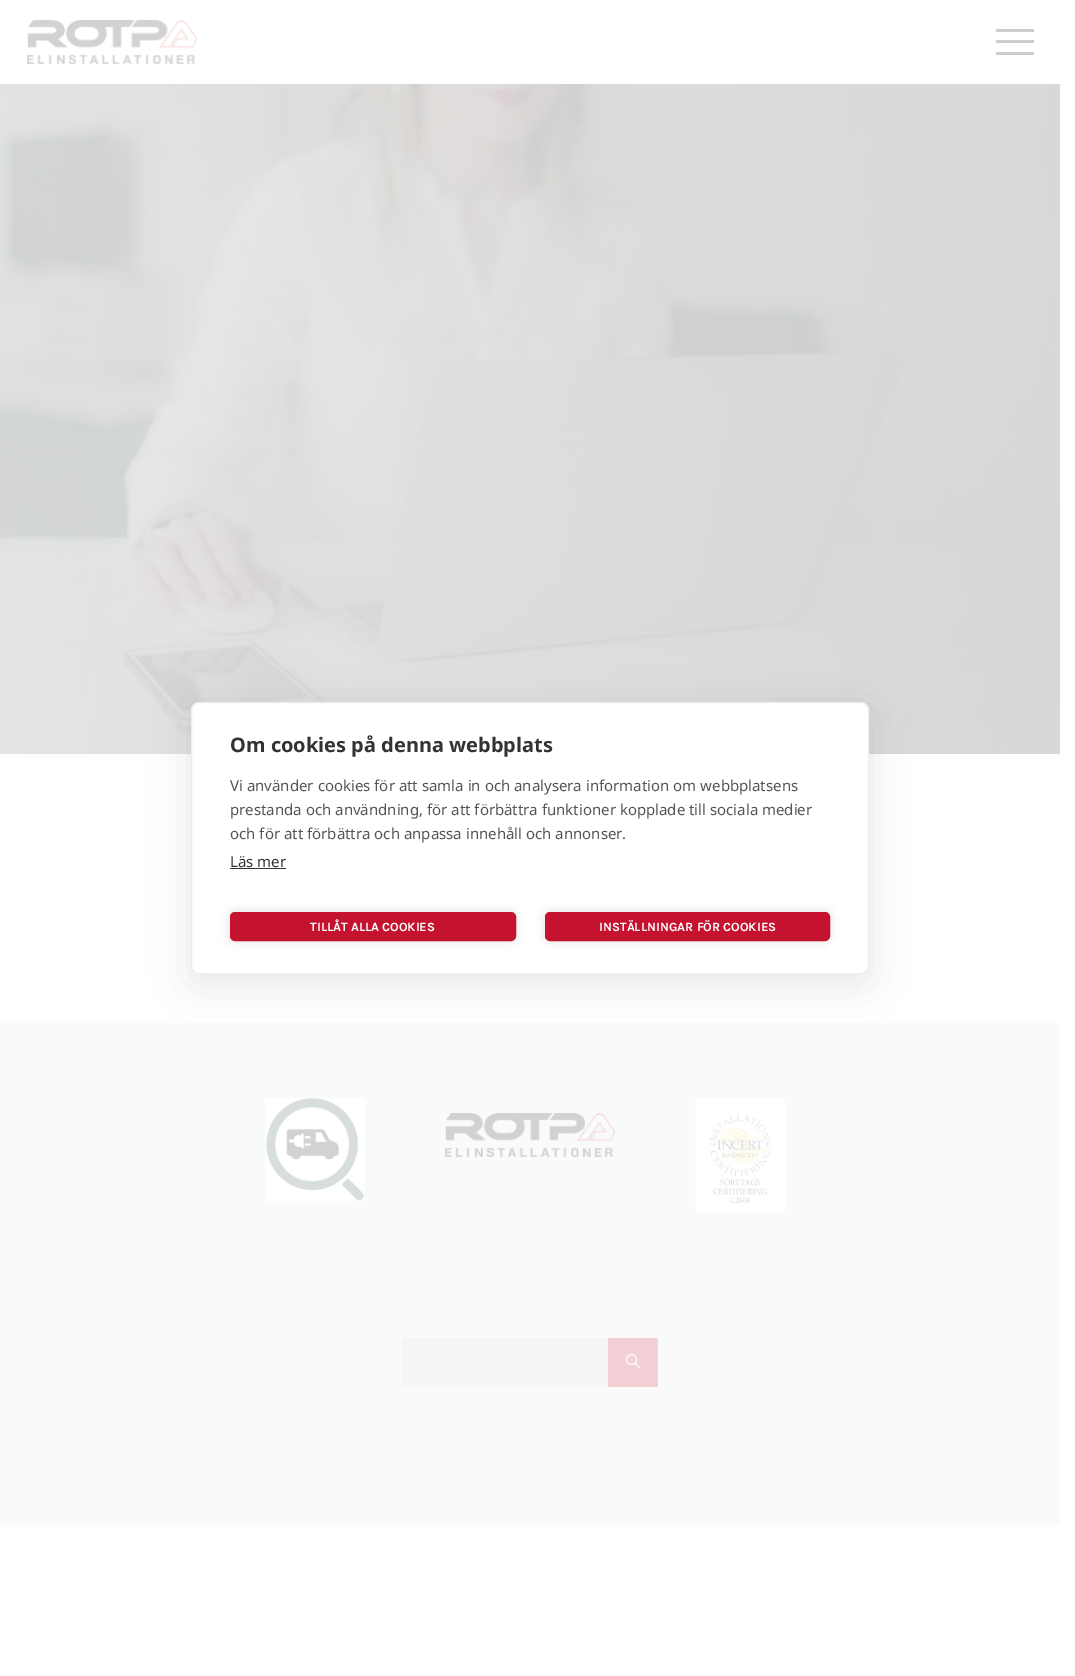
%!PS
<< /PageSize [1075 1676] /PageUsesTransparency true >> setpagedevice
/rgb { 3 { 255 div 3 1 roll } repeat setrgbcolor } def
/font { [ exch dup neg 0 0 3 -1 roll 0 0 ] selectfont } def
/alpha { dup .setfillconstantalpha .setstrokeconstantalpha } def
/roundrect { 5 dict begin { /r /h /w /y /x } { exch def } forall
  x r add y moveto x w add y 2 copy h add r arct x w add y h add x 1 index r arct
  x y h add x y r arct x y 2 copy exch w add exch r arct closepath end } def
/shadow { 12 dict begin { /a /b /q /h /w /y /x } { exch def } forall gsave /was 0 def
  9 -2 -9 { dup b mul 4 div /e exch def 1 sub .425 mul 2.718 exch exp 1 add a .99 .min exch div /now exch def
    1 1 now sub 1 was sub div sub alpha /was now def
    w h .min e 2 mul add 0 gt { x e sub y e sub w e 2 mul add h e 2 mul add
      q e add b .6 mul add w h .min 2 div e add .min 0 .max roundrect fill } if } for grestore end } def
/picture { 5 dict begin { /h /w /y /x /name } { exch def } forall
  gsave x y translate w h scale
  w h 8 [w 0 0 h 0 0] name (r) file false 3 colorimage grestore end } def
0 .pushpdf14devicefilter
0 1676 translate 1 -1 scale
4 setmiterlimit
255 255 255 rgb
0 0 1075 1676 rectfill
(img/1.rgb) 27 20 170 44 picture
[
  [996 29 38 3 0 0 0]
  [996 40 38 3 0 0 0]
  [996 52 38 3 0 0 0]
] { aload pop rgb rectfill } forall
(img/2.rgb) 0 84 1060 670 picture
227 228 231 rgb
0 1023 1060 502 rectfill
(img/3.rgb) 265 1098 100 103 picture
(img/4.rgb) 445 1113 170 44 picture
207 205 205 rgb
402 1338 255 50 2 roundrect fill
227 228 231 rgb
403 1387 253 1 rectfill
196 18 47 rgb
608 1338 moveto 656 1338 lineto 657 1338 658 1339 658 1340 curveto 658 1385 lineto 658 1386 657 1387 656 1387 curveto 608 1387 lineto closepath fill
(img/5.rgb) 626 1354 14 14 picture
(img/6.rgb) 695 1098 90 114 picture
218 219 221 rgb
0 1463 1060 1 rectfill
0.8 alpha
255 255 255 rgb
0 20 1060 1505 rectfill
1 alpha
0 0 0 rgb
191 712 678 272 8 20 0.1 shadow
255 255 255 rgb
191.5 702.5 677 271 7.5 roundrect gsave fill grestore
238 238 238 rgb
stroke
51 51 51 rgb
230 868 56 1 rectfill
0 0 0 rgb
230 912 286 29 5 5 0.12 shadow
196 18 47 rgb
231 913 284 27 4 roundrect gsave fill grestore
2 setlinewidth
stroke
0 0 0 rgb
545 912 285 29 5 5 0.12 shadow
196 18 47 rgb
546 913 283 27 4 roundrect gsave fill grestore
stroke
/NotoSans-Bold 20 font
51 51 51 rgb
230 752 moveto (Om cookies på denna webbplats) show
/NotoSans-Regular 15 font
85 85 85 rgb
[
  [(Vi använder cookies för att samla in och analysera information om webbplatsens) 230 791]
  [(prestanda och användning, för att förbättra funktioner kopplade till sociala medier) 230 815]
  [(och för att förbättra och anpassa innehåll och annonser.) 230 839]
] { aload pop moveto show } forall
51 51 51 rgb
230 867 moveto (Läs mer) show
/Karla-Bold 12.6 font
255 255 255 rgb
310 931 moveto (TILLÅT ALLA COOKIES) show
599 931 moveto (INSTÄLLNINGAR FÖR COOKIES) show
.poppdf14devicefilter showpage
